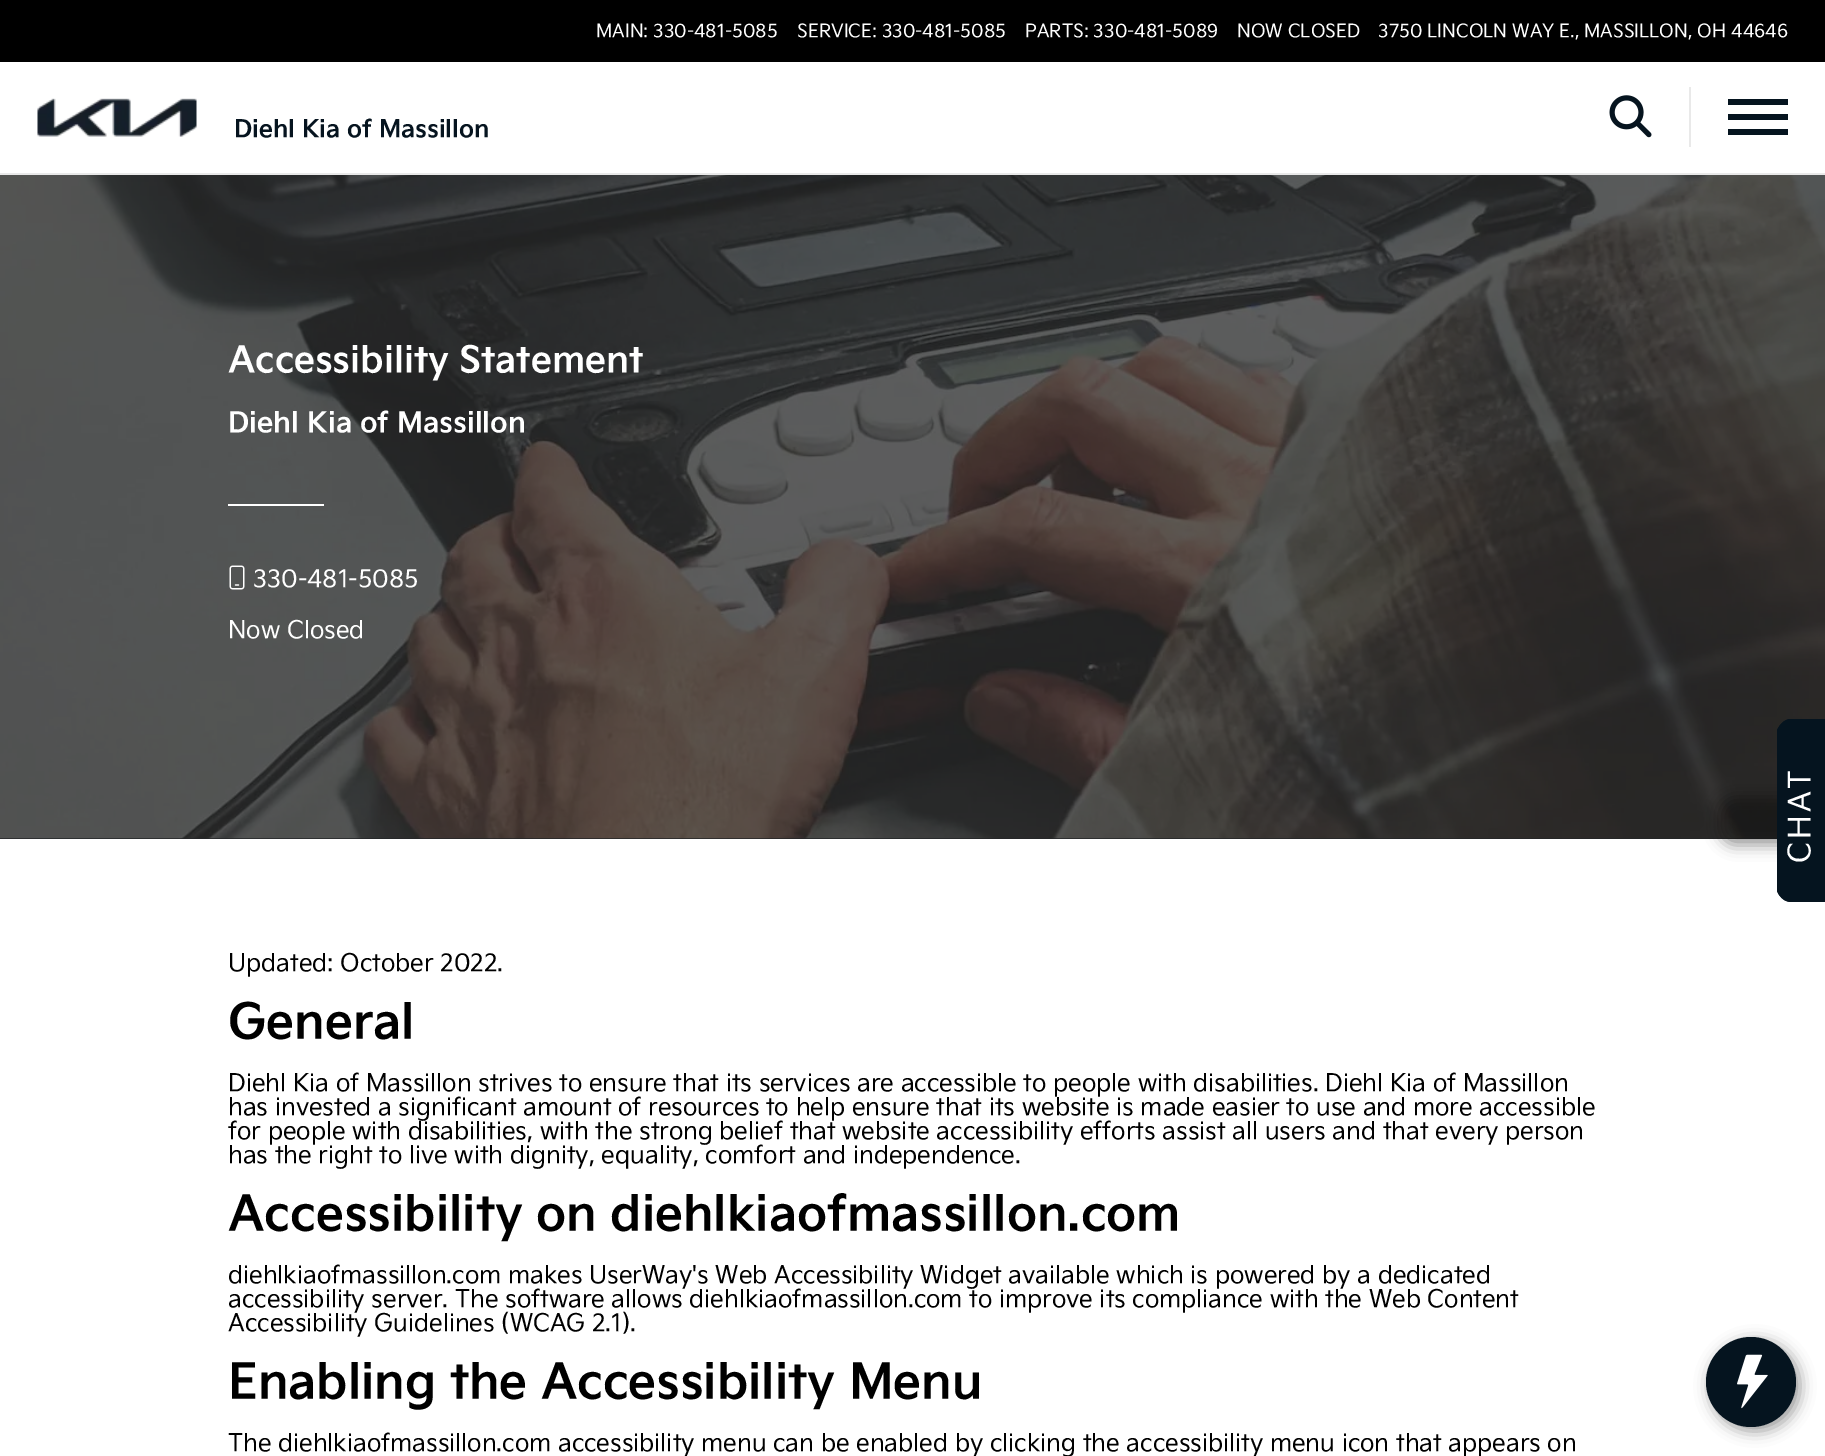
%!PS
<< /PageSize [1825 1456] /PageUsesTransparency true >> setpagedevice
/rgb { 3 { 255 div 3 1 roll } repeat setrgbcolor } def
/font { [ exch dup neg 0 0 3 -1 roll 0 0 ] selectfont } def
/alpha { dup .setfillconstantalpha .setstrokeconstantalpha } def
/circle { newpath 0 360 arc closepath } def
/roundrect { 5 dict begin { /r /h /w /y /x } { exch def } forall
  x r add y moveto x w add y 2 copy h add r arct x w add y h add x 1 index r arct
  x y h add x y r arct x y 2 copy exch w add exch r arct closepath end } def
/shadow { 12 dict begin { /a /b /q /h /w /y /x } { exch def } forall gsave /was 0 def
  9 -2 -9 { dup b mul 4 div /e exch def 1 sub .425 mul 2.718 exch exp 1 add a .99 .min exch div /now exch def
    1 1 now sub 1 was sub div sub alpha /was now def
    w h .min e 2 mul add 0 gt { x e sub y e sub w e 2 mul add h e 2 mul add
      q e add b .6 mul add w h .min 2 div e add .min 0 .max roundrect fill } if } for grestore end } def
/picture { 5 dict begin { /h /w /y /x /name } { exch def } forall
  gsave x y translate w h scale
  w h 8 [w 0 0 h 0 0] name (r) file false 3 colorimage grestore end } def
0 .pushpdf14devicefilter
0 1456 translate 1 -1 scale
4 setmiterlimit
255 255 255 rgb
0 0 1825 1456 rectfill
0 0 0 rgb
0 0 1825 62 rectfill
233 233 233 rgb
0 173 1825 2 rectfill
(img/1.rgb) 37 98 160 39 picture
1689 87 2 60 rectfill
(img/2.rgb) 1609 95 43 43 picture
[
  [1728 99 60 6 5 20 31]
  [1728 114 60 6 5 20 31]
  [1728 129 60 6 5 20 31]
  [0 838 1777 1 35 37 39]
] { aload pop rgb rectfill } forall
(img/3.rgb) 0 175 1825 664 picture
255 255 255 rgb
228 504 96 2 rectfill
(img/4.rgb) 229 565 16 25 picture
0 0 0 rgb
1719 797 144 48 15 7.5 0.4 shadow
5 20 31 rgb
1777 887 moveto 1777 734 lineto 1777 726 1784 719 1792 719 curveto 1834 719 lineto 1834 902 lineto 1792 902 lineto 1784 902 1777 896 1777 887 curveto closepath fill
1782 887 moveto 1782 890 1783 893 1785 895 curveto 1782 898 lineto 1780 896 1778 894 1777 891 curveto 1777 730 lineto 1778 728 1780 725 1782 723 curveto 1785 727 lineto 1783 729 1782 731 1782 734 curveto closepath fill
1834 719 moveto 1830 724 lineto 1792 724 lineto 1789 724 1787 725 1785 727 curveto 1782 723 lineto 1784 721 1786 720 1789 719 curveto closepath fill
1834 902 moveto 1792 902 lineto 1788 902 1785 901 1782 898 curveto 1785 895 lineto 1787 897 1790 898 1792 898 curveto 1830 898 lineto closepath fill
0 0 0 rgb
1710 1341 90 90 45 7.5 0.4 shadow
5 20 31 rgb
1751 1382 45 circle fill
(img/5.rgb) 1737 1354 31 55 picture
/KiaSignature-Regular 18 font
255 255 255 rgb
[
  [(MAIN: 330-481-5085) 596 37]
  [(SERVICE: 330-481-5085) 797 37]
  [(PARTS: 330-481-5089) 1025 37]
  [(NOW CLOSED) 1237 37]
  [(3750 LINCOLN WAY E., MASSILLON, OH 44646) 1378 37]
] { aload pop moveto show } forall
/KiaSignature-Bold 24 font
6 20 31 rgb
234 137 moveto (Diehl Kia of Massillon) show
/KiaSignature-Bold 36 font
255 255 255 rgb
228 372 moveto (Accessibility Statement) show
/KiaSignature-Bold 28 font
228 432 moveto (Diehl Kia of Massillon) show
/KiaSignature-Regular 24 font
253 587 moveto (330-481-5085) show
228 638 moveto (Now Closed) show
0 0 0 rgb
228 971 moveto (Updated: October 2022.) show
/KiaSignature-Bold 48 font
228 1038 moveto (General) show
/KiaSignature-Regular 24 font
[
  [(Diehl Kia of Massillon strives to ensure that its services are accessible to people with disabilities. Diehl Kia of Massillon) 228 1091]
  [(has invested a significant amount of resources to help ensure that its website is made easier to use and more accessible) 228 1115]
  [(for people with disabilities, with the strong belief that website accessibility efforts assist all users and that every person) 228 1139]
  [(has the right to live with dignity, equality, comfort and independence.) 228 1163]
] { aload pop moveto show } forall
/KiaSignature-Bold 48 font
228 1230 moveto (Accessibility on diehlkiaofmassillon.com) show
/KiaSignature-Regular 24 font
[
  [(diehlkiaofmassillon.com makes UserWay's Web Accessibility Widget available which is powered by a dedicated) 228 1283]
  [(accessibility server. The software allows diehlkiaofmassillon.com to improve its compliance with the Web Content) 228 1307]
  [(Accessibility Guidelines \(WCAG 2.1\).) 228 1331]
] { aload pop moveto show } forall
/KiaSignature-Bold 48 font
228 1398 moveto (Enabling the Accessibility Menu) show
/KiaSignature-Regular 24 font
228 1451 moveto (The diehlkiaofmassillon.com accessibility menu can be enabled by clicking the accessibility menu icon that appears on) show
/KiaSignature-Regular 30 font
255 255 255 rgb
gsave 1810 863 translate -90 rotate 0 0 moveto 3 0 (CHAT) ashow grestore
.poppdf14devicefilter showpage
